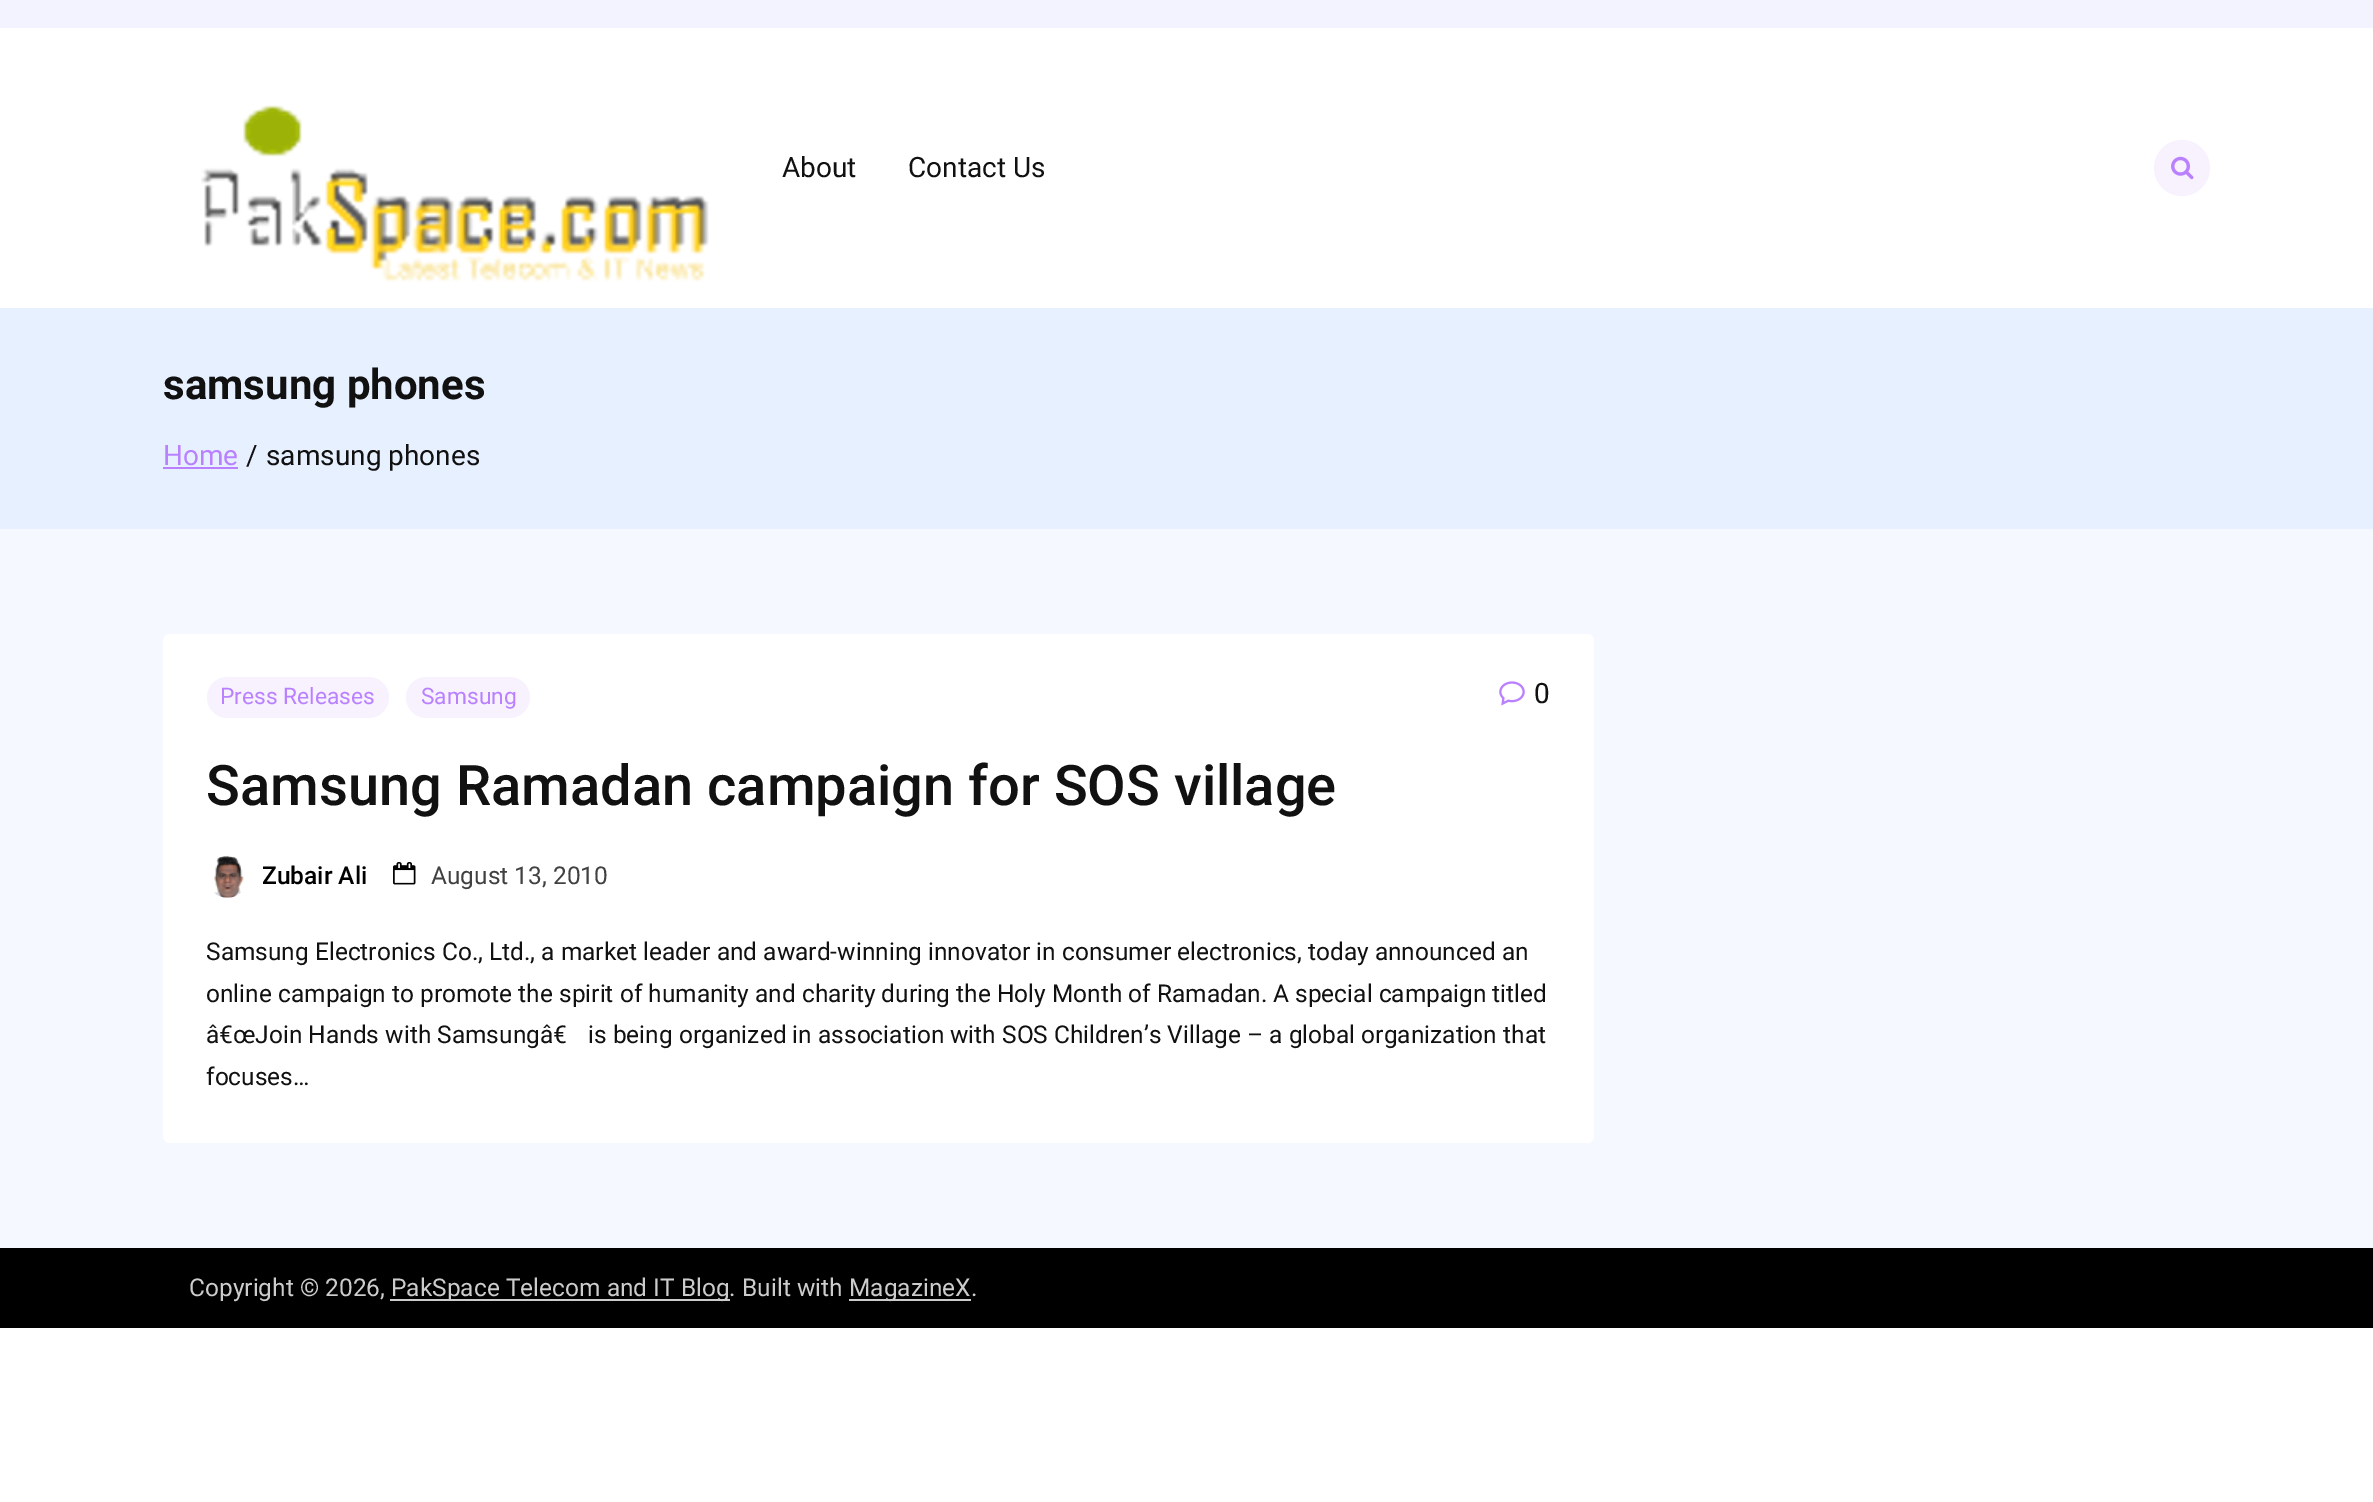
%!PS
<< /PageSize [2373 1502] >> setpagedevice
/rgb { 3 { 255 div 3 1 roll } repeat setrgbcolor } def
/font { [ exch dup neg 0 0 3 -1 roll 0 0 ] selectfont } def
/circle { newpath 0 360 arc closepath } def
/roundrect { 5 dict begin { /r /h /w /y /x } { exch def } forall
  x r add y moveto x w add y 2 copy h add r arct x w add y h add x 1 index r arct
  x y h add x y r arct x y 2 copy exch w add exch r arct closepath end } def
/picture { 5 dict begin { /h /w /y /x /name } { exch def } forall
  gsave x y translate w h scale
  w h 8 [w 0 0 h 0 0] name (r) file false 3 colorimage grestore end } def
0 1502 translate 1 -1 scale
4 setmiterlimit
255 255 255 rgb
0 0 2373 1502 rectfill
242 243 255 rgb
0 0 2373 28 rectfill
(img/1.rgb) 201 105 508 177 picture
248 242 255 rgb
2182 168 28 circle fill
(img/2.rgb) 2171 156 23 24 picture
[
  [0 308 2373 221 231 240 255]
  [163 467 75 2 186 129 255]
  [0 529 2373 719 245 249 255]
] { aload pop rgb rectfill } forall
255 255 255 rgb
163 634 1431 509 7 roundrect fill
248 242 255 rgb
207 677 182 41 20.5 roundrect fill
406 677 124 41 20.5 roundrect fill
(img/3.rgb) 1499 681 26 25 picture
(img/4.rgb) 214 855 30 43 picture
(img/5.rgb) 393 862 23 23 picture
[
  [0 1248 2373 80 0 0 0]
  [390 1299 340 2 204 204 204]
  [849 1299 122 2 204 204 204]
] { aload pop rgb rectfill } forall
/Roboto-Regular 28 font
17 17 17 rgb
782 177 moveto (About) show
908 177 moveto (Contact Us) show
/Roboto-Bold 42 font
163 399 moveto (samsung phones) show
/Roboto-Regular 28 font
186 129 255 rgb
163 465 moveto (Home) show
17 17 17 rgb
246 465 moveto (/) show
266 465 moveto (samsung phones) show
/Roboto-Regular 22.75 font
186 129 255 rgb
220 704 moveto (Press Releases) show
421 704 moveto (Samsung) show
/Roboto-Regular 28 font
17 17 17 rgb
1534 703 moveto (0) show
/Roboto-Medium 56 font
206 805 moveto (Samsung Ramadan campaign for SOS village) show
/Roboto-Medium 24.5 font
0 0 0 rgb
262 884 moveto (Zubair Ali) show
/Roboto-Regular 24.5 font
65 65 65 rgb
431 884 moveto (August 13, 2010) show
17 17 17 rgb
[
  [(Samsung Electronics Co., Ltd., a market leader and award-winning innovator in consumer electronics, today announced an) 206 960]
  [(online campaign to promote the spirit of humanity and charity during the Holy Month of Ramadan. A special campaign titled) 206 1002]
  [(â€œJoin Hands with Samsungâ€) 206 1043]
  [(is being organized in association with SOS Children’s Village – a global organization that) 588 1043]
  [(focuses…) 206 1085]
] { aload pop moveto show } forall
204 204 204 rgb
[
  [(Copyright © 2026,) 189 1296]
  [(PakSpace Telecom and IT Blog. Built with) 391 1296]
  [(MagazineX.) 849 1296]
] { aload pop moveto show } forall
showpage
